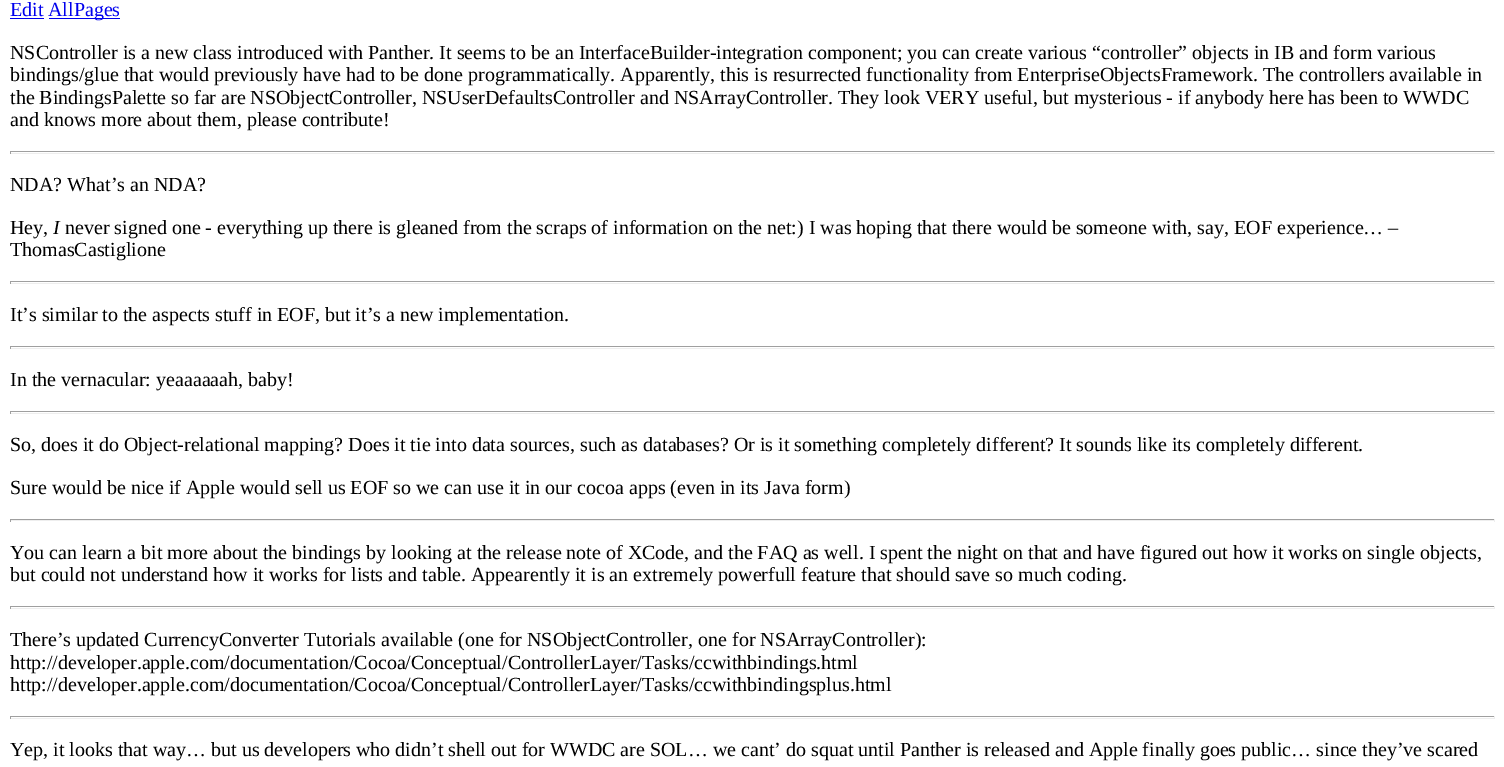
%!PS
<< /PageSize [1504 767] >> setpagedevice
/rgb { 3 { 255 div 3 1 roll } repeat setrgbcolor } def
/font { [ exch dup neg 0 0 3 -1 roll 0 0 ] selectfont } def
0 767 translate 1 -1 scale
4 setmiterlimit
255 255 255 rgb
0 0 1504 767 rectfill
[
  [10 18 34 1 0 0 238]
  [49 18 71 1 0 0 238]
  [10 151 1485 1 159 159 159]
  [1494 151 1 3 238 238 238]
  [10 153 1485 1 238 238 238]
  [10 151 1 3 159 159 159]
  [10 281 1485 1 159 159 159]
  [1494 281 1 3 238 238 238]
  [10 283 1485 1 238 238 238]
  [10 281 1 3 159 159 159]
  [10 346 1485 1 159 159 159]
  [1494 346 1 3 238 238 238]
  [10 348 1485 1 238 238 238]
  [10 346 1 3 159 159 159]
  [10 411 1485 1 159 159 159]
  [1494 411 1 3 238 238 238]
  [10 413 1485 1 238 238 238]
  [10 411 1 3 159 159 159]
  [10 519 1485 1 159 159 159]
  [1494 519 1 3 238 238 238]
  [10 520 1485 1 238 238 238]
  [10 519 1 3 159 159 159]
  [10 606 1485 1 159 159 159]
  [1494 606 1 3 238 238 238]
  [10 608 1485 1 238 238 238]
  [10 606 1 3 159 159 159]
  [10 716 1485 1 159 159 159]
  [1494 716 1 3 238 238 238]
  [10 718 1485 1 238 238 238]
  [10 716 1 3 159 159 159]
] { aload pop rgb rectfill } forall
/LiberationSerif-Regular 20 font
0 0 238 rgb
10 16 moveto (Edit) show
48 16 moveto (AllPages) show
0 0 0 rgb
[
  [(NSController is a new class introduced with Panther. It seems to be an InterfaceBuilder-integration component; you can create various “controller” objects in IB and form various) 10 59]
  [(bindings/glue that would previously have had to be done programmatically. Apparently, this is resurrected functionality from EnterpriseObjectsFramework. The controllers available in) 10 81]
  [(the BindingsPalette so far are NSObjectController, NSUserDefaultsController and NSArrayController. They look VERY useful, but mysterious - if anybody here has been to WWDC) 10 104]
  [(and knows more about them, please contribute!) 10 126]
  [(NDA? What’s an NDA?) 10 191]
  [(Hey,) 10 234]
] { aload pop moveto show } forall
/LiberationSerif-Italic 20 font
53 234 moveto (I) show
/LiberationSerif-Regular 20 font
[
  [(never signed one - everything up there is gleaned from the scraps of information on the net:\) I was hoping that there would be someone with, say, EOF experience… –) 65 234]
  [(ThomasCastiglione) 10 256]
  [(It’s similar to the aspects stuff in EOF, but it’s a new implementation.) 10 321]
  [(In the vernacular: yeaaaaaah, baby!) 10 386]
  [(So, does it do Object-relational mapping? Does it tie into data sources, such as databases? Or is it something completely different? It sounds like its completely different.) 10 451]
  [(Sure would be nice if Apple would sell us EOF so we can use it in our cocoa apps \(even in its Java form\)) 10 494]
  [(You can learn a bit more about the bindings by looking at the release note of XCode, and the FAQ as well. I spent the night on that and have figured out how it works on single objects,) 10 559]
  [(but could not understand how it works for lists and table. Appearently it is an extremely powerfull feature that should save so much coding.) 10 581]
  [(There’s updated CurrencyConverter Tutorials available \(one for NSObjectController, one for NSArrayController\):) 10 646]
  [(http://developer.apple.com/documentation/Cocoa/Conceptual/ControllerLayer/Tasks/ccwithbindings.html) 10 669]
  [(http://developer.apple.com/documentation/Cocoa/Conceptual/ControllerLayer/Tasks/ccwithbindingsplus.html) 10 691]
  [(Yep, it looks that way… but us developers who didn’t shell out for WWDC are SOL… we cant’ do squat until Panther is released and Apple finally goes public… since they’ve scared) 10 756]
] { aload pop moveto show } forall
showpage
